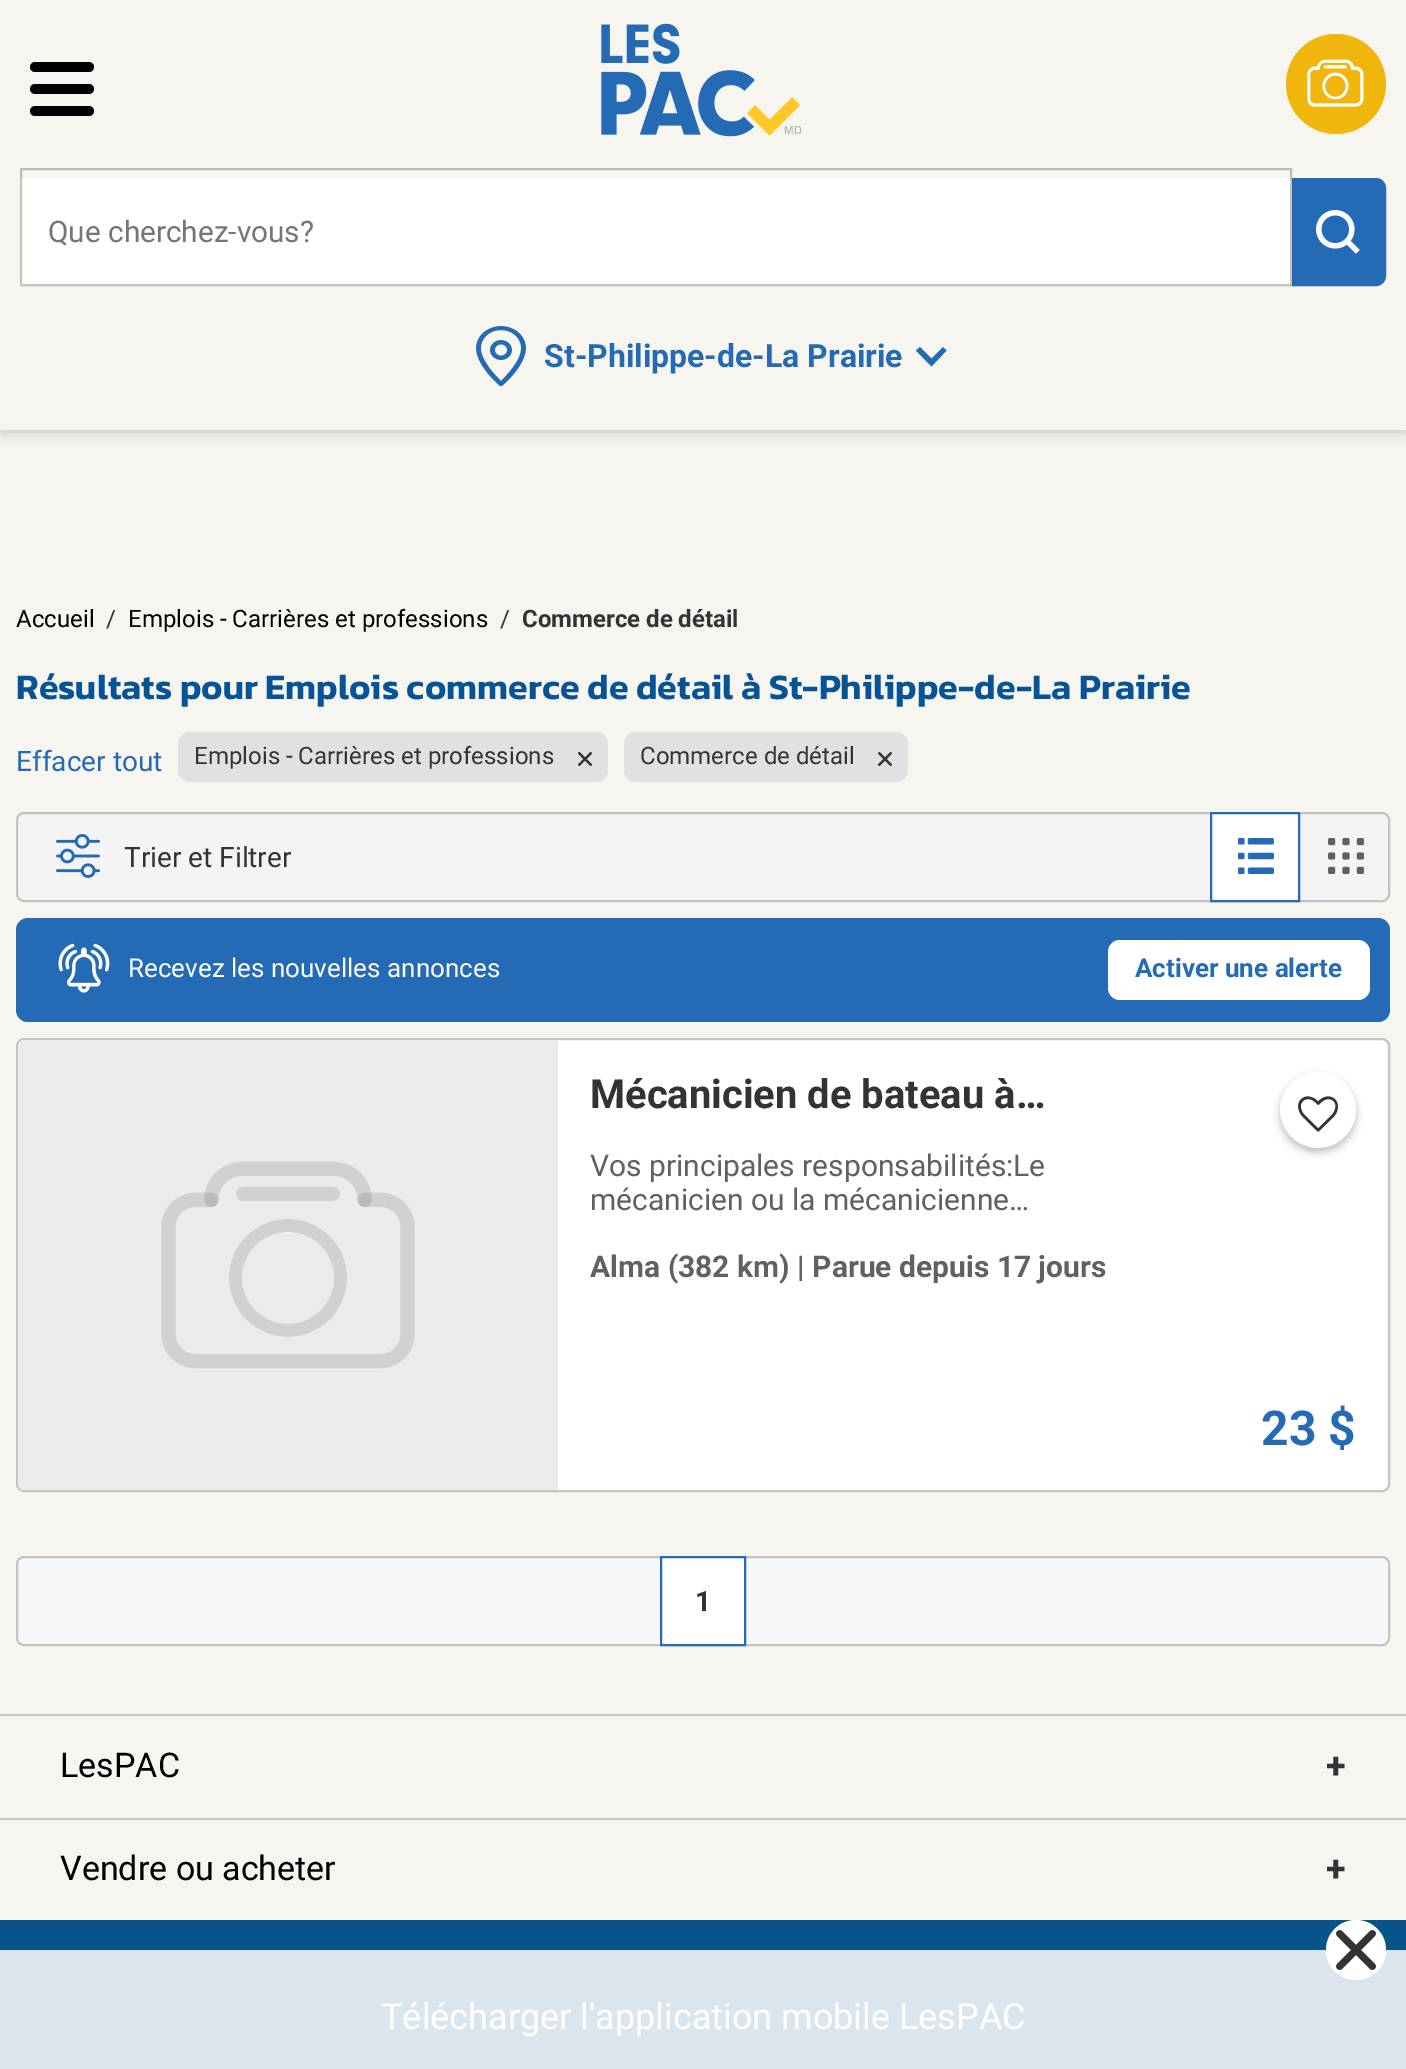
%!PS
<< /PageSize [1406 2069] /PageUsesTransparency true >> setpagedevice
/rgb { 3 { 255 div 3 1 roll } repeat setrgbcolor } def
/font { [ exch dup neg 0 0 3 -1 roll 0 0 ] selectfont } def
/alpha { dup .setfillconstantalpha .setstrokeconstantalpha } def
/circle { newpath 0 360 arc closepath } def
/roundrect { 5 dict begin { /r /h /w /y /x } { exch def } forall
  x r add y moveto x w add y 2 copy h add r arct x w add y h add x 1 index r arct
  x y h add x y r arct x y 2 copy exch w add exch r arct closepath end } def
/shadow { 12 dict begin { /a /b /q /h /w /y /x } { exch def } forall gsave /was 0 def
  9 -2 -9 { dup b mul 4 div /e exch def 1 sub .425 mul 2.718 exch exp 1 add a .99 .min exch div /now exch def
    1 1 now sub 1 was sub div sub alpha /was now def
    w h .min e 2 mul add 0 gt { x e sub y e sub w e 2 mul add h e 2 mul add
      q e add b .6 mul add w h .min 2 div e add .min 0 .max roundrect fill } if } for grestore end } def
/picture { 5 dict begin { /h /w /y /x /name } { exch def } forall
  gsave x y translate w h scale
  w h 8 [w 0 0 h 0 0] name (r) file false 3 colorimage grestore end } def
0 .pushpdf14devicefilter
0 2069 translate 1 -1 scale
4 setmiterlimit
246 245 240 rgb
0 0 1406 2069 rectfill
0 0 0 rgb
0 2 1406 430 0 7 0.2 shadow
246 245 240 rgb
0 0 1406 430 rectfill
0 0 0 rgb
30 84 64 10 5 roundrect fill
30 62 64 10 5 roundrect fill
30 106 64 10 5 roundrect fill
(img/1.rgb) 601 23 201 114 picture
240 182 12 rgb
1336 84 50 circle fill
(img/2.rgb) 1307 59 57 48 picture
36 106 180 rgb
1291 179 moveto 1376 179 lineto 1381 179 1385 183 1385 188 curveto 1385 276 lineto 1385 281 1381 285 1376 285 curveto 1291 285 lineto closepath gsave fill grestore
2 setlinewidth
stroke
255 255 255 rgb
20 178 1272 108 rectfill
0.23 alpha
0 0 0 rgb
21 169 1270 116 rectstroke
1 alpha
(img/3.rgb) 1316 210 44 44 picture
(img/4.rgb) 476 326 50 61 picture
36 106 180 rgb
916 350.5 moveto 920 347 lineto 931.5 358.5 lineto 943 347 lineto 946.5 350.5 lineto 931.5 366.5 lineto closepath fill
225 225 225 rgb
178 732 430 50 12 roundrect fill
(img/5.rgb) 578 752 14 14 picture
624 732 284 50 12 roundrect fill
(img/5.rgb) 878 752 14 14 picture
244 244 244 rgb
17 813 1372 88 7 roundrect gsave fill grestore
196 196 196 rgb
stroke
(img/6.rgb) 56 834 44 44 picture
255 255 255 rgb
1211 813 moveto 1299 813 lineto 1299 901 lineto 1211 901 lineto closepath gsave fill grestore
36 106 180 rgb
stroke
(img/7.rgb) 1238 838 36 36 picture
(img/8.rgb) 1328 838 36 36 picture
16 918 1374 104 12 roundrect fill
(img/9.rgb) 58 943 52 50 picture
255 255 255 rgb
1108 940 262 60 12 roundrect fill
17 1039 1372 452 7 roundrect gsave fill grestore
196 196 196 rgb
stroke
gsave
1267 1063 moveto 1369 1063 lineto 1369 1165 lineto 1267 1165 lineto closepath 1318 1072 moveto 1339 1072 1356 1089 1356 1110 curveto 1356 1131 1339 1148 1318 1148 curveto 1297 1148 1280 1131 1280 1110 curveto 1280 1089 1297 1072 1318 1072 curveto closepath eoclip newpath
0 0 0 rgb
1280 1076 76 76 38 4 0.25 shadow
grestore
0.85 alpha
255 255 255 rgb
1318 1110 38 circle fill
1 alpha
(img/10.rgb) 1298 1096 40 36 picture
(img/11.rgb) 18 1040 540 450 picture
246 247 248 rgb
17 1557 1372 88 7 roundrect gsave fill grestore
196 196 196 rgb
stroke
255 255 255 rgb
661 1557 moveto 745 1557 lineto 745 1645 lineto 661 1645 lineto closepath gsave fill grestore
36 106 180 rgb
stroke
[
  [0 1714 1406 2 197 196 192]
  [0 1818 1406 2 197 196 192]
  [0 1920 1406 30 7 83 140]
  [0 1950 1406 119 218 229 238]
] { aload pop rgb rectfill } forall
255 255 255 rgb
1356 1950 30 circle fill
(img/12.rgb) 1336 1930 40 40 picture
/Roboto-Regular 29.75 font
117 117 117 rgb
48 242 moveto (Que cherchez-vous?) show
/Roboto-Bold 32 font
36 106 180 rgb
544 367 moveto (St-Philippe-de-La Prairie) show
/Roboto-Regular 24 font
0 0 0 rgb
16 627 moveto (Accueil) show
51 51 51 rgb
106 627 moveto (/) show
0 0 0 rgb
128 627 moveto (Emplois - Carrières et professions) show
51 51 51 rgb
500 627 moveto (/) show
/Roboto-Bold 24 font
522 627 moveto (Commerce de détail) show
/Kanit-SemiBold 36 font
6 84 150 rgb
16 699 moveto (Résultats pour Emplois commerce de détail à St-Philippe-de-La Prairie) show
/Roboto-Regular 28 font
36 106 180 rgb
16 771 moveto (Effacer tout) show
/Roboto-Regular 24 font
51 51 51 rgb
194 764 moveto (Emplois - Carrières et professions) show
640 764 moveto (Commerce de détail) show
/Roboto-Regular 28 font
124 867 moveto (Trier et Filtrer) show
/Roboto-Regular 26 font
255 255 255 rgb
128 977 moveto (Recevez les nouvelles annonces) show
/Roboto-Bold 26 font
36 106 180 rgb
1135 977 moveto (Activer une alerte) show
/Roboto-Bold 40 font
51 51 51 rgb
590 1108 moveto (Mécanicien de bateau à…) show
/Roboto-Regular 30 font
98 97 97 rgb
590 1176 moveto (Vos principales responsabilités:Le) show
590 1210 moveto (mécanicien ou la mécanicienne…) show
/Roboto-Bold 30 font
590 1277 moveto (Alma \(382 km\) | Parue depuis 17 jours) show
/Roboto-Bold 48 font
36 106 180 rgb
1261 1445 moveto (23 $) show
/Roboto-Bold 28 font
51 51 51 rgb
695 1611 moveto (1) show
/Roboto-Regular 34 font
0 0 0 rgb
60 1777 moveto (LesPAC) show
/Roboto-Bold 36 font
51 51 51 rgb
1326 1778 moveto (+) show
/Roboto-Regular 34 font
0 0 0 rgb
60 1880 moveto (Vendre ou acheter) show
/Roboto-Bold 36 font
51 51 51 rgb
1326 1881 moveto (+) show
/Roboto-Regular 36 font
255 255 255 rgb
381 2029 moveto (Télécharger l'application mobile LesPAC) show
.poppdf14devicefilter showpage
